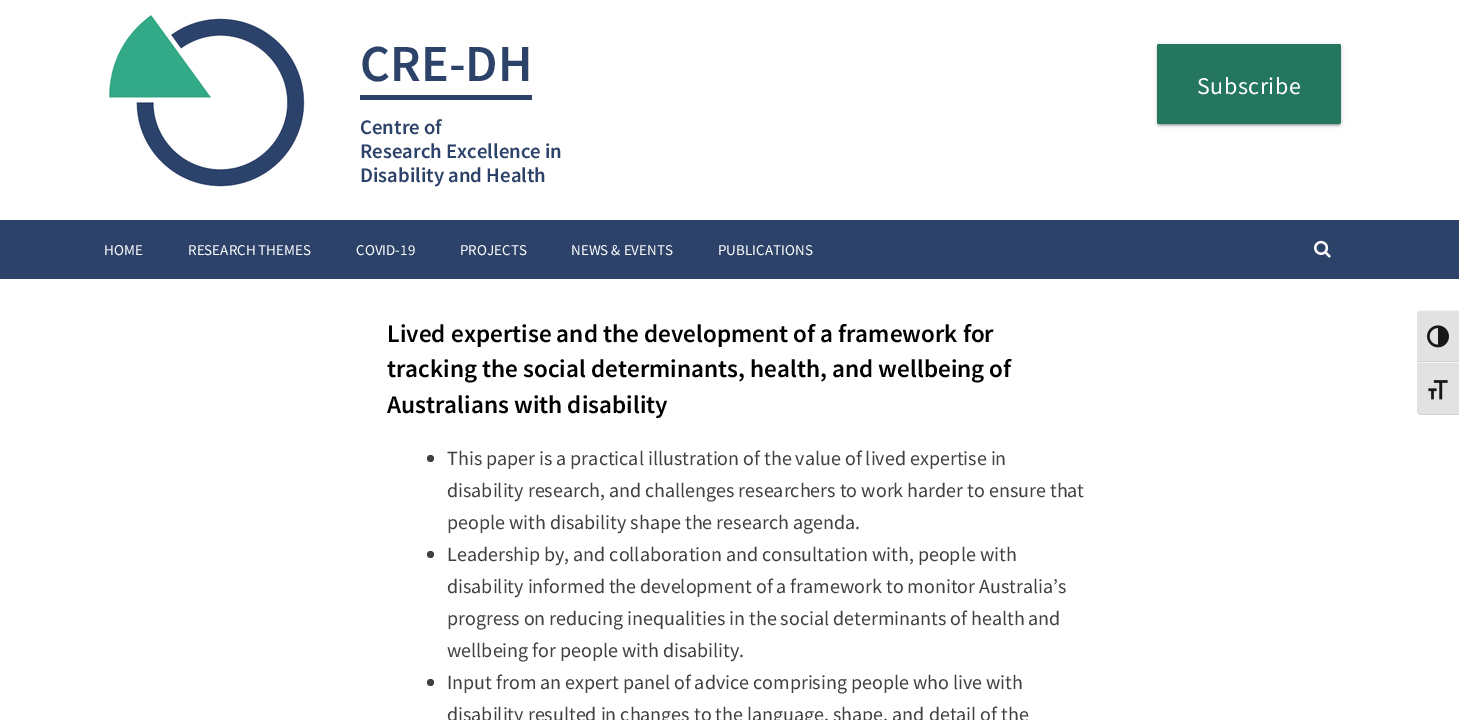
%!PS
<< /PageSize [1459 720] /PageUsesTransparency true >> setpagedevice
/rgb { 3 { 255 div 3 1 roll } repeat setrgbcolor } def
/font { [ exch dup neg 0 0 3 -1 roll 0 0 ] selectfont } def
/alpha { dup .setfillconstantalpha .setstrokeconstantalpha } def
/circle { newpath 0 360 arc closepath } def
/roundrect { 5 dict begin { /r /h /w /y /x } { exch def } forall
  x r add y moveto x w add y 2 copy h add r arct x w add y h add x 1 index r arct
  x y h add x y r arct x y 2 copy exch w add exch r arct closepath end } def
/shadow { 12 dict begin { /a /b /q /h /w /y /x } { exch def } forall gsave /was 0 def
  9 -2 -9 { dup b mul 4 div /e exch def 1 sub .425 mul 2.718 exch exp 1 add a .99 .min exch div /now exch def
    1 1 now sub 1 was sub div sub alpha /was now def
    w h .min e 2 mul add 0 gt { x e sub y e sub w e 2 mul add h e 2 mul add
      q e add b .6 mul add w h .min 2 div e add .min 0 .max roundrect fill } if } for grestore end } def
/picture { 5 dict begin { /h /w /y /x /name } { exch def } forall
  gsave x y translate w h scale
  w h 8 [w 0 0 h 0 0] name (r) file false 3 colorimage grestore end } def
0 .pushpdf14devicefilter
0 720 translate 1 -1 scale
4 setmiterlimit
255 255 255 rgb
0 0 1459 720 rectfill
(img/1.rgb) 109 15 196 172 picture
44 66 105 rgb
360 95 172 5 rectfill
0 0 0 rgb
1159 49 180 76 0 0.5 0.2 shadow
1157 45 184 80 2 2.5 0.12 shadow
1157 46 184 80 2 1 0.14 shadow
36 118 94 rgb
1157 44 184 80 2 roundrect fill
44 66 105 rgb
0 220 1459 59 rectfill
(img/2.rgb) 1314 240 17 18 picture
64 64 64 rgb
430.5 458.5 3.5 circle fill
430.5 554.5 3.5 circle fill
430.5 682.5 3.5 circle fill
226 226 226 rgb
1421 310 moveto 1459 310 lineto 1459 362 lineto 1417 362 lineto 1417 314 lineto 1417 312 1419 310 1421 310 curveto closepath fill
245 245 245 rgb
1421 311 moveto 1459 311 lineto 1459 310 lineto 1421 310 lineto 1419 310 1417 312 1417 314 curveto 1417 312 1419 311 1421 311 curveto closepath fill
210 210 210 rgb
1417 361 42 1 rectfill
(img/3.rgb) 1427 325 22 23 picture
226 226 226 rgb
1417 362 moveto 1459 362 lineto 1459 415 lineto 1421 415 lineto 1419 415 1417 413 1417 411 curveto closepath fill
245 245 245 rgb
1417 362 42 1 rectfill
210 210 210 rgb
1459 415 moveto 1459 414 lineto 1421 414 lineto 1419 414 1417 413 1417 411 curveto 1417 413 1419 415 1421 415 curveto closepath fill
(img/4.rgb) 1428 380 20 20 picture
/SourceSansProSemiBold-SemiBold 52 font
44 66 105 rgb
360 81 moveto (CRE-DH) show
/SourceSansProSemiBold-SemiBold 20.75 font
[
  [(Centre of) 360 134]
  [(Research Excellence in) 360 158]
  [(Disability and Health) 360 182]
] { aload pop moveto show } forall
/SourceSansPro-Regular 24 font
255 255 255 rgb
1197 94 moveto 0.5 0 (Subscribe) ashow
/SourceSansPro-Regular 15 font
[
  [(HOME) 104 255]
  [(RESEARCH THEMES) 188 255]
  [(COVID-19) 356 255]
  [(PROJECTS) 460 255]
  [(NEWS & EVENTS) 571 255]
  [(PUBLICATIONS) 718 255]
] { aload pop moveto show } forall
/SourceSansProSemiBold-SemiBold 25.2 font
0 0 0 rgb
[
  [(Lived expertise and the development of a framework for) 387 342]
  [(tracking the social determinants, health, and wellbeing of) 387 377]
  [(Australians with disability) 387 413]
] { aload pop moveto show } forall
/SourceSansPro-Regular 20 font
64 64 64 rgb
[
  [(This paper is a practical illustration of the value of lived expertise in) 447 465]
  [(disability research, and challenges researchers to work harder to ensure that) 447 497]
  [(people with disability shape the research agenda.) 447 529]
  [(Leadership by, and collaboration and consultation with, people with) 447 561]
  [(disability informed the development of a framework to monitor Australia’s) 447 593]
  [(progress on reducing inequalities in the social determinants of health and) 447 625]
  [(wellbeing for people with disability.) 447 657]
  [(Input from an expert panel of advice comprising people who live with) 447 689]
  [(disability resulted in changes to the language, shape, and detail of the) 447 721]
] { aload pop moveto show } forall
.poppdf14devicefilter showpage
